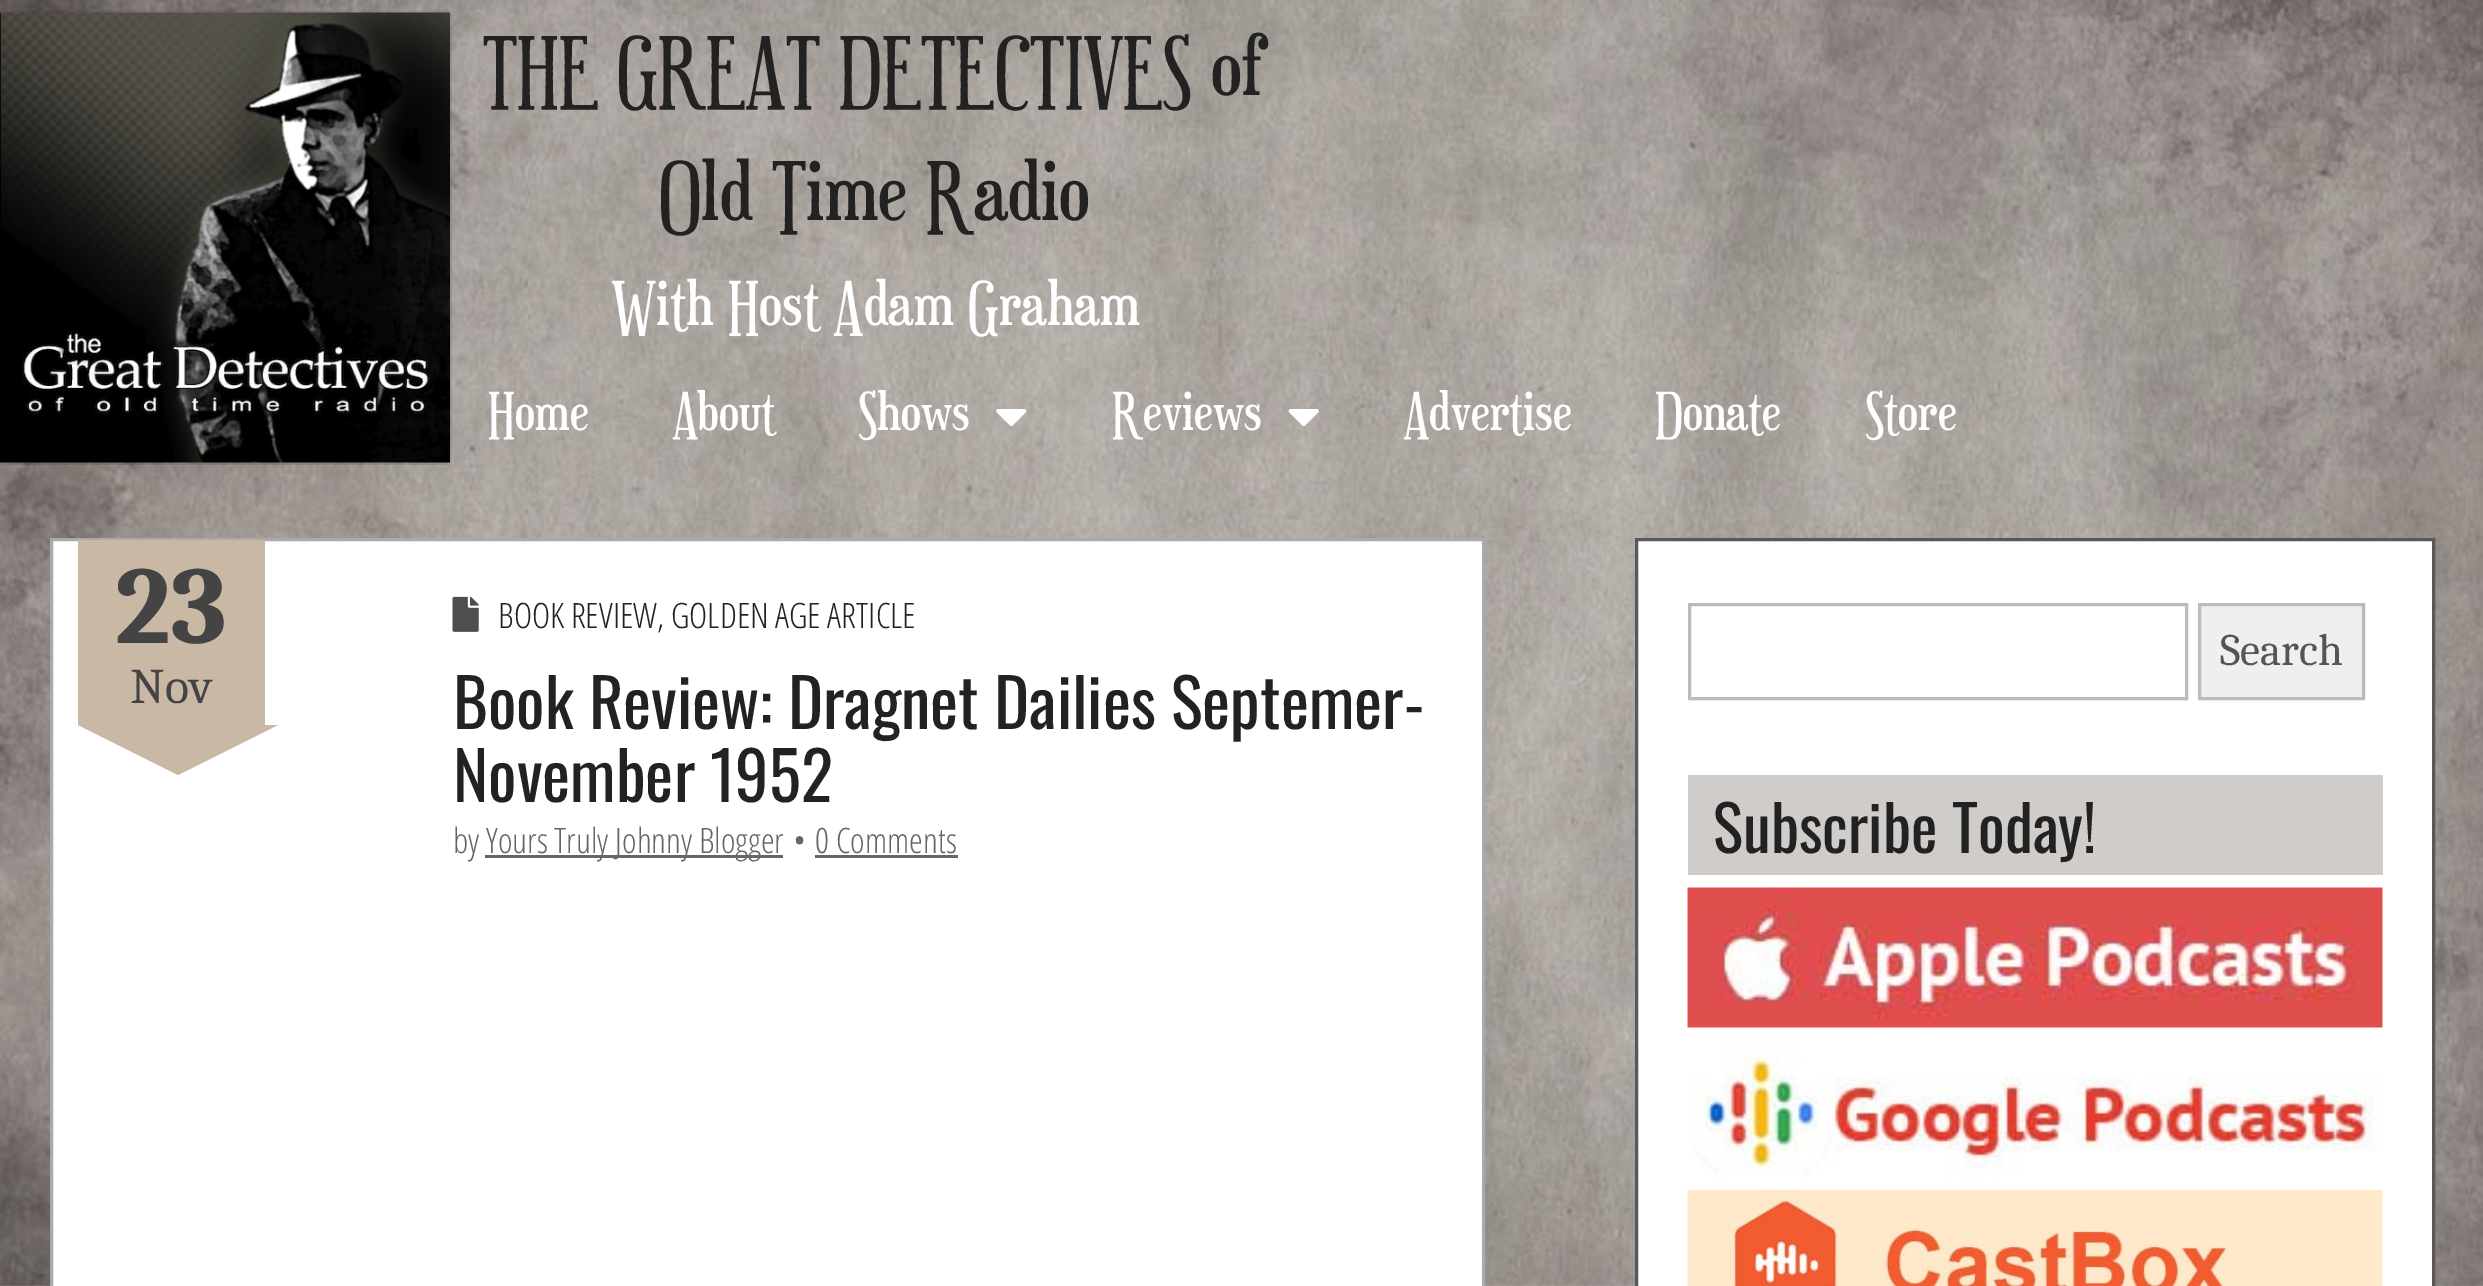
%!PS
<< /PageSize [2483 1286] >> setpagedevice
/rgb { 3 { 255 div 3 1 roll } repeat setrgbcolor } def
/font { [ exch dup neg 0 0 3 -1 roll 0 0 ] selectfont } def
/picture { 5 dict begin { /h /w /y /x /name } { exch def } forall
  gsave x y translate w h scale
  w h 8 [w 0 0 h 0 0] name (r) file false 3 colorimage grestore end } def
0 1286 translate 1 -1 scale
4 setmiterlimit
255 255 255 rgb
0 0 2483 1286 rectfill
(img/1.rgb) 0 0 2483 1286 picture
(img/2.rgb) 0 10 452 455 picture
(img/3.rgb) 996 409 31 18 picture
(img/4.rgb) 1288 409 31 18 picture
51.5 539.5 moveto 1483.5 539.5 lineto 1483.5 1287.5 lineto 51.5 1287.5 lineto closepath gsave fill grestore
170 170 170 rgb
3 setlinewidth
stroke
201 184 163 rgb
78 540 187 185 rectfill
78 725 moveto 278 725 lineto 178 775 lineto closepath fill
(img/5.rgb) 452 596 27 36 picture
102 102 102 rgb
485 855 298 3 rectfill
815 855 143 3 rectfill
255 255 255 rgb
1636.5 539.5 moveto 2433.5 539.5 lineto 2433.5 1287.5 lineto 1636.5 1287.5 lineto closepath gsave fill grestore
88 88 88 rgb
stroke
187 187 187 rgb
1689.5 604.5 497 94 rectstroke
239 239 239 rgb
2199.5 604.5 moveto 2363.5 604.5 lineto 2363.5 698.5 lineto 2199.5 698.5 lineto closepath gsave fill grestore
187 187 187 rgb
stroke
208 204 201 rgb
1688 775 695 100 rectfill
(img/6.rgb) 1687 887 696 141 picture
(img/7.rgb) 1687 1044 695 133 picture
(img/8.rgb) 1687 1190 696 96 picture
/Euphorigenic-Regular 80 font
34 34 34 rgb
483 95 moveto (THE GREAT DETECTIVES of) show
659 220 moveto (Old Time Radio) show
/Euphorigenic-Regular 60 font
255 255 255 rgb
611 325 moveto (With Host Adam Graham) show
/Euphorigenic-Regular 52 font
[
  [(Home) 488 430]
  [(About) 672 430]
  [(Shows) 858 430]
  [(Reviews) 1112 430]
  [(Advertise) 1403 430]
  [(Donate) 1655 430]
  [(Store) 1865 430]
] { aload pop moveto show } forall
/Caladea-Bold 110 font
68 68 68 rgb
115 643 moveto (23) show
/Caladea-Regular 50 font
130 703 moveto (Nov) show
/OpenSansCondensed-Light 35 font
34 34 34 rgb
498 628 moveto (BOOK REVIEW, GOLDEN AGE ARTICLE) show
/Oswald-Regular 66.7 font
453 729 moveto (Book Review: Dragnet Dailies Septemer-) show
453 802 moveto (November 1952) show
/OpenSansCondensed-Light 35 font
102 102 102 rgb
[
  [(by) 453 853]
  [(Yours Truly Johnny Blogger) 486 853]
  [(•) 793 853]
  [(0 Comments) 815 853]
] { aload pop moveto show } forall
/Caladea-Regular 45 font
85 85 85 rgb
2220 665 moveto (Search) show
/Oswald-Regular 63 font
34 34 34 rgb
1713 853 moveto (Subscribe Today!) show
showpage
